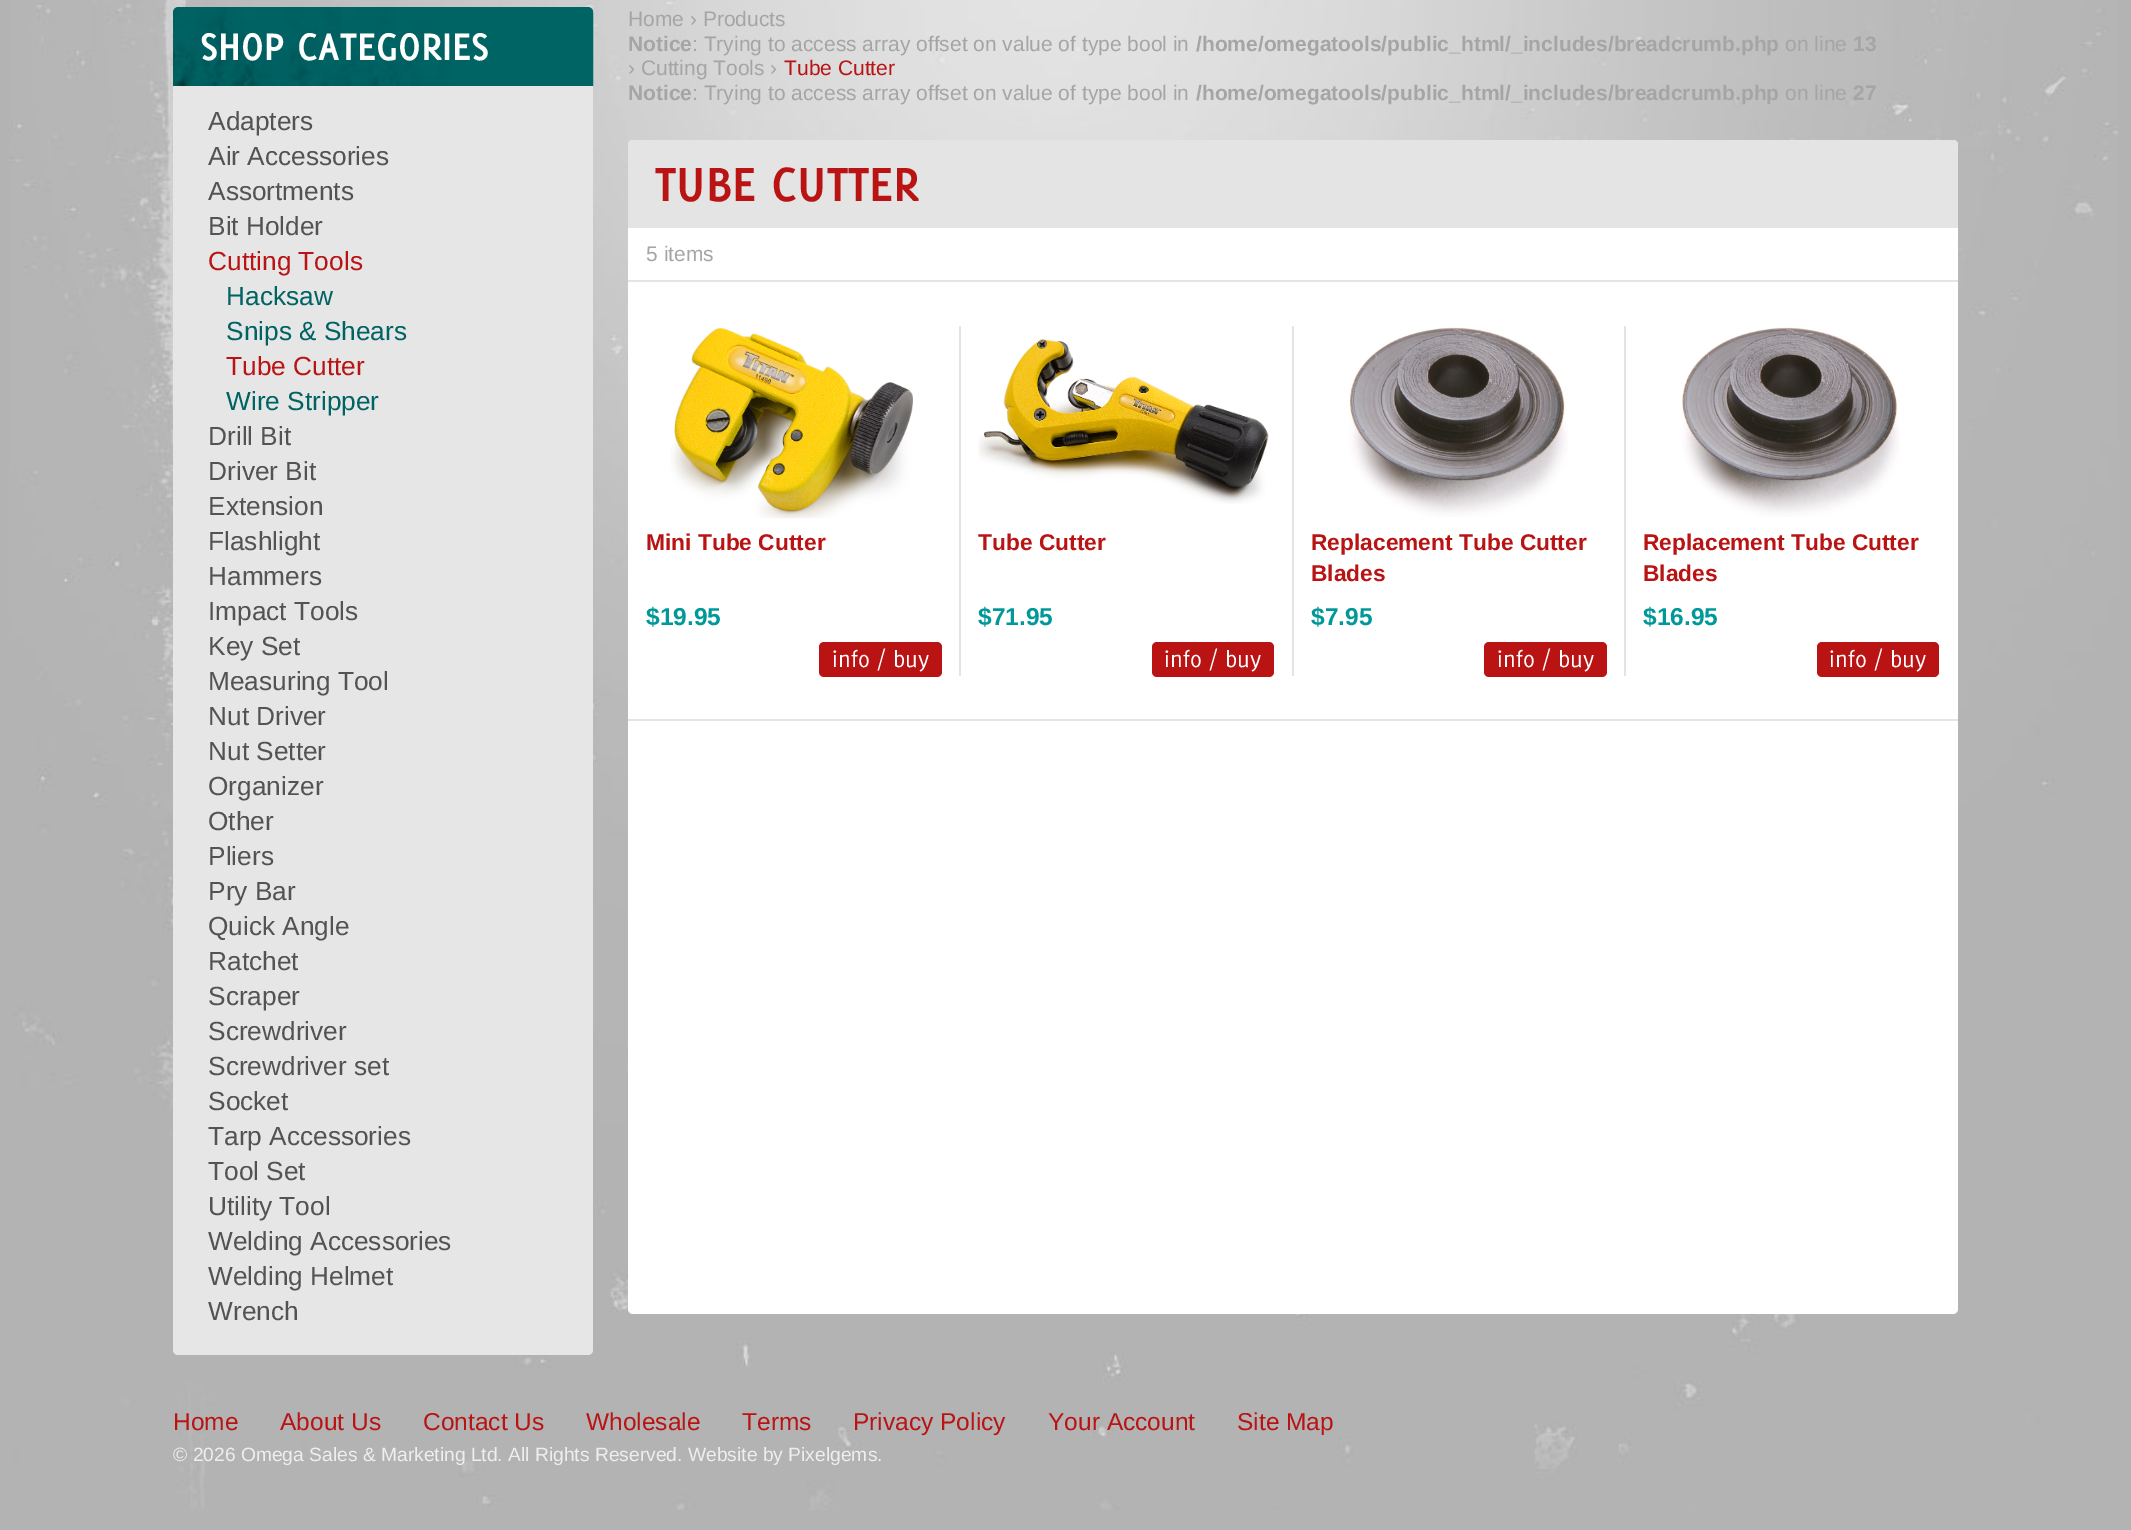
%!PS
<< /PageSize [2131 1530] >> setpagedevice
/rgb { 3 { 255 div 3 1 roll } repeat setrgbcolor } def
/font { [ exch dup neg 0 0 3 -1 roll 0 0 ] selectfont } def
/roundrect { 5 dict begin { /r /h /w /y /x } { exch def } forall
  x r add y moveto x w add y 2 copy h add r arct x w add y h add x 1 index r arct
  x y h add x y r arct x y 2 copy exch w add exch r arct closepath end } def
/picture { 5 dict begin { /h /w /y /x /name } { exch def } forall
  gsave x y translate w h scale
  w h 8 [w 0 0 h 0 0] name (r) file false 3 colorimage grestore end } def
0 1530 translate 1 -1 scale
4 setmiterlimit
179 179 179 rgb
0 0 2131 1530 rectfill
(img/1.rgb) 9 0 2110 1510 picture
230 230 230 rgb
173 7 420 1348 5 roundrect fill
0 99 99 rgb
178 7 moveto 588 7 lineto 591 7 593 9 593 12 curveto 593 86 lineto 173 86 lineto 173 12 lineto 173 9 175 7 178 7 curveto closepath fill
(img/2.rgb) 173 7 421 79 picture
255 255 255 rgb
628 140 1330 1174 5 roundrect fill
228 228 228 rgb
633 140 moveto 1953 140 lineto 1956 140 1958 142 1958 145 curveto 1958 228 lineto 628 228 lineto 628 145 lineto 628 142 630 140 633 140 curveto closepath fill
628 280 1330 2 rectfill
959 326 2 350 rectfill
(img/3.rgb) 670 328 243 191 picture
185 19 19 rgb
819 642 123 35 5 roundrect fill
228 228 228 rgb
1292 326 2 350 rectfill
(img/4.rgb) 978 339 291 165 picture
185 19 19 rgb
1152 642 122 35 5 roundrect fill
228 228 228 rgb
1624 326 2 350 rectfill
(img/5.rgb) 1349 327 219 190 picture
185 19 19 rgb
1484 642 123 35 5 roundrect fill
(img/6.rgb) 1682 327 218 190 picture
1817 642 122 35 5 roundrect fill
228 228 228 rgb
628 719 1330 2 rectfill
/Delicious-Bold 42 font
255 255 255 rgb
200 60 moveto (SHOP CATEGORIES) show
/LiberationSans-Regular 26.25 font
83 83 83 rgb
[
  [(Adapters) 208 130]
  [(Air Accessories) 208 165]
  [(Assortments) 208 200]
  [(Bit Holder) 208 235]
] { aload pop moveto show } forall
185 19 19 rgb
208 270 moveto (Cutting Tools) show
0 99 99 rgb
226 305 moveto (Hacksaw) show
226 340 moveto (Snips & Shears) show
185 19 19 rgb
226 375 moveto (Tube Cutter) show
0 99 99 rgb
226 410 moveto (Wire Stripper) show
83 83 83 rgb
[
  [(Drill Bit) 208 445]
  [(Driver Bit) 208 480]
  [(Extension) 208 515]
  [(Flashlight) 208 550]
  [(Hammers) 208 585]
  [(Impact Tools) 208 620]
  [(Key Set) 208 655]
  [(Measuring Tool) 208 690]
  [(Nut Driver) 208 725]
  [(Nut Setter) 208 760]
  [(Organizer) 208 795]
  [(Other) 208 830]
  [(Pliers) 208 865]
  [(Pry Bar) 208 900]
  [(Quick Angle) 208 935]
  [(Ratchet) 208 970]
  [(Scraper) 208 1005]
  [(Screwdriver) 208 1040]
  [(Screwdriver set) 208 1075]
  [(Socket) 208 1110]
  [(Tarp Accessories) 208 1145]
  [(Tool Set) 208 1180]
  [(Utility Tool) 208 1215]
  [(Welding Accessories) 208 1250]
  [(Welding Helmet) 208 1285]
  [(Wrench) 208 1320]
] { aload pop moveto show } forall
/LiberationSans-Regular 21 font
165 165 165 rgb
628 26 moveto (Home › Products) show
/LiberationSans-Bold 21 font
628 51 moveto (Notice) show
/LiberationSans-Regular 21 font
692 51 moveto (: Trying to access array offset on value of type bool in) show
/LiberationSans-Bold 21 font
1196 51 moveto (/home/omegatools/public_html/_includes/breadcrumb.php) show
/LiberationSans-Regular 21 font
1785 51 moveto (on line) show
/LiberationSans-Bold 21 font
1853 51 moveto (13) show
/LiberationSans-Regular 21 font
628 75 moveto (› Cutting Tools ›) show
185 19 19 rgb
784 75 moveto (Tube Cutter) show
/LiberationSans-Bold 21 font
165 165 165 rgb
628 100 moveto (Notice) show
/LiberationSans-Regular 21 font
692 100 moveto (: Trying to access array offset on value of type bool in) show
/LiberationSans-Bold 21 font
1196 100 moveto (/home/omegatools/public_html/_includes/breadcrumb.php) show
/LiberationSans-Regular 21 font
1785 100 moveto (on line) show
/LiberationSans-Bold 21 font
1853 100 moveto (27) show
/Delicious-Bold 52.5 font
185 19 19 rgb
655 201 moveto (TUBE CUTTER) show
/LiberationSans-Regular 21 font
165 165 165 rgb
646 261 moveto (5 items) show
/LiberationSans-Bold 22.75 font
185 19 19 rgb
646 550 moveto (Mini Tube Cutter) show
/LiberationSans-Bold 24.5 font
0 152 152 rgb
646 625 moveto ($19.95) show
/Delicious-Regular 24.5 font
255 255 255 rgb
832 667 moveto (info / buy) show
/LiberationSans-Bold 22.75 font
185 19 19 rgb
978 550 moveto (Tube Cutter) show
/LiberationSans-Bold 24.5 font
0 152 152 rgb
978 625 moveto ($71.95) show
/Delicious-Regular 24.5 font
255 255 255 rgb
1164 667 moveto (info / buy) show
/LiberationSans-Bold 22.75 font
185 19 19 rgb
1311 550 moveto (Replacement Tube Cutter) show
1311 581 moveto (Blades) show
/LiberationSans-Bold 24.5 font
0 152 152 rgb
1311 625 moveto ($7.95) show
/Delicious-Regular 24.5 font
255 255 255 rgb
1497 667 moveto (info / buy) show
/LiberationSans-Bold 22.75 font
185 19 19 rgb
1643 550 moveto (Replacement Tube Cutter) show
1643 581 moveto (Blades) show
/LiberationSans-Bold 24.5 font
0 152 152 rgb
1643 625 moveto ($16.95) show
/Delicious-Regular 24.5 font
255 255 255 rgb
1829 667 moveto (info / buy) show
/LiberationSans-Regular 24.5 font
185 19 19 rgb
[
  [(Home) 173 1430]
  [(About Us) 280 1430]
  [(Contact Us) 423 1430]
  [(Wholesale) 586 1430]
  [(Terms) 742 1430]
  [(Privacy Policy) 853 1430]
  [(Your Account) 1048 1430]
  [(Site Map) 1237 1430]
] { aload pop moveto show } forall
/LiberationSans-Regular 19.25 font
238 238 238 rgb
173 1461 moveto (© 2026 Omega Sales & Marketing Ltd. All Rights Reserved. Website by Pixelgems.) show
showpage
